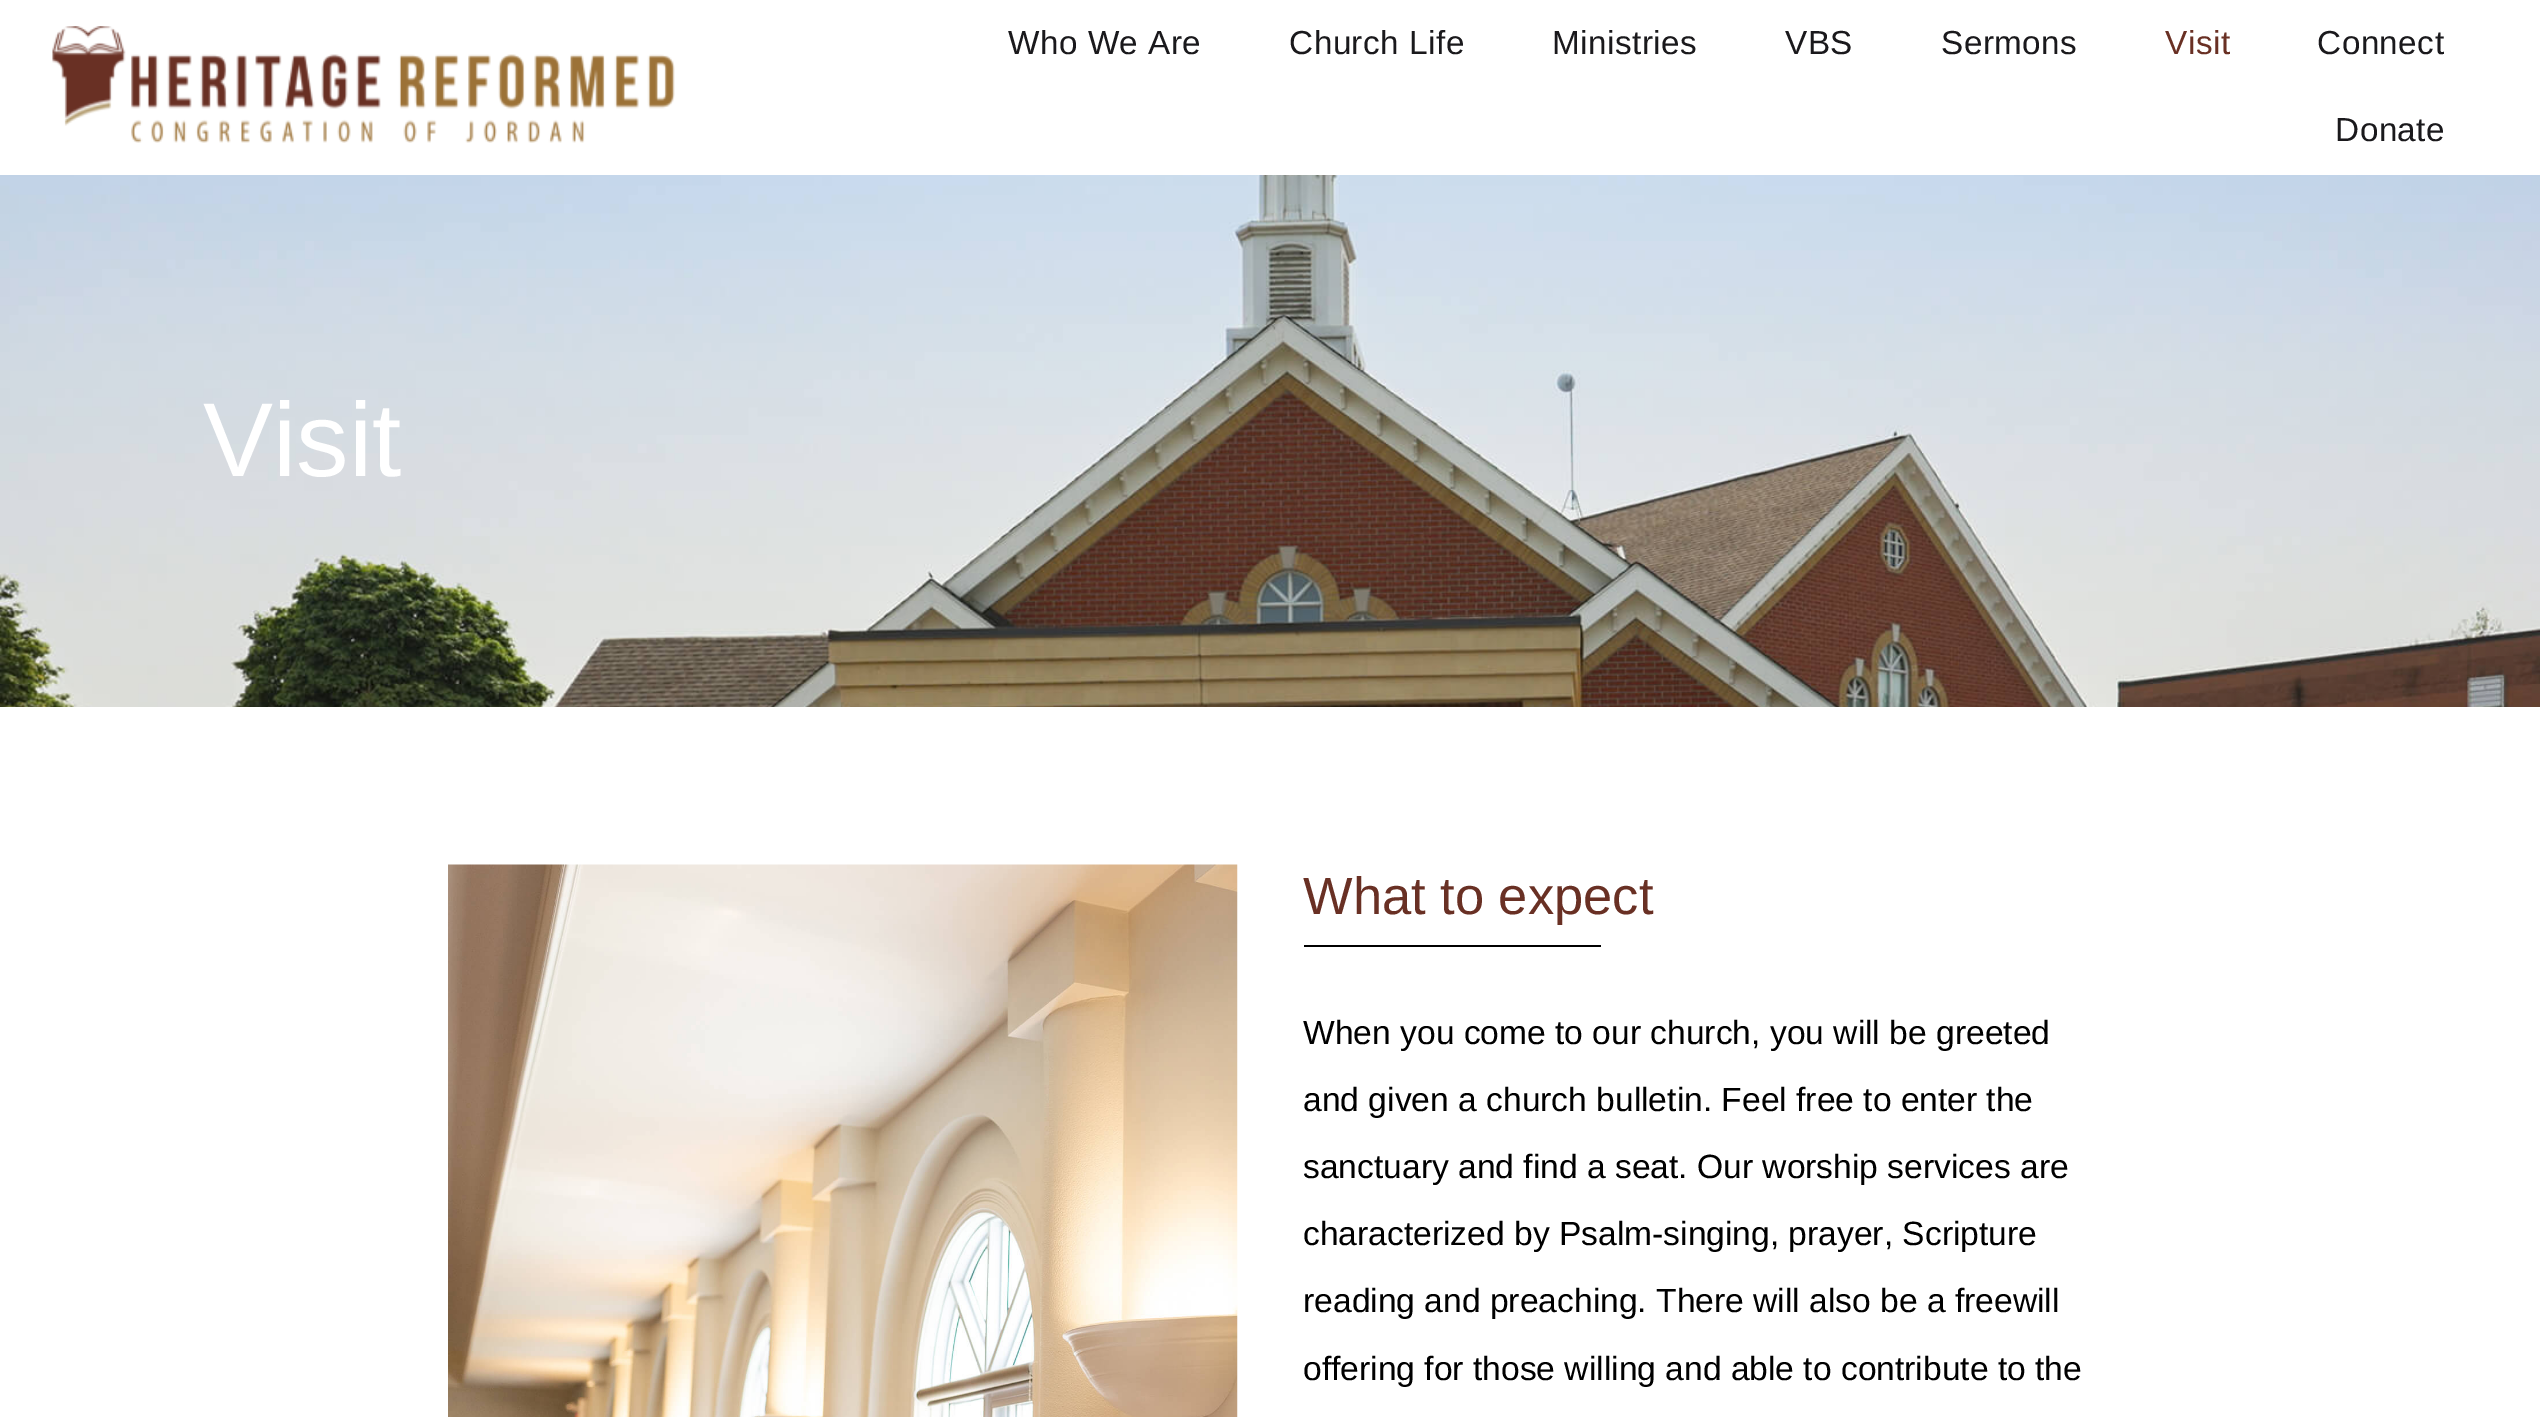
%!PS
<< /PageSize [2540 1417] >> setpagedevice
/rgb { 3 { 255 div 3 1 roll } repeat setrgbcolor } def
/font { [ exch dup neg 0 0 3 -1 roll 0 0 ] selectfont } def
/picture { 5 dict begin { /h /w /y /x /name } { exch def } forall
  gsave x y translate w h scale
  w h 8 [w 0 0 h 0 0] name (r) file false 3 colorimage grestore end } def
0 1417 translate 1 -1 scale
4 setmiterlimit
255 255 255 rgb
0 0 2540 1417 rectfill
(img/1.rgb) 52 26 623 117 picture
(img/2.rgb) 0 175 2540 532 picture
(img/3.rgb) 448 864 790 553 picture
0 0 0 rgb
1304 945 297 2 rectfill
/LiberationSans-Regular 33.25 font
26 25 28 rgb
1008 54 moveto 0.5 0 (Who We Are) ashow
1289 54 moveto 0.5 0 (Church Life) ashow
1552 54 moveto 0.5 0 (Ministries) ashow
1785 54 moveto 0.5 0 (VBS) ashow
1941 54 moveto 0.5 0 (Sermons) ashow
105 48 36 rgb
2165 54 moveto 0.5 0 (Visit) ashow
26 25 28 rgb
2317 54 moveto 0.5 0 (Connect) ashow
2335 141 moveto 0.5 0 (Donate) ashow
/LiberationSans-Regular 105 font
255 255 255 rgb
203 476 moveto (Visit) show
/LiberationSans-Regular 52.5 font
105 48 36 rgb
1303 914 moveto (What to expect) show
/LiberationSans-Regular 33.6 font
0 0 0 rgb
[
  [(When you come to our church, you will be greeted) 1303 1044]
  [(and given a church bulletin. Feel free to enter the) 1303 1111]
  [(sanctuary and find a seat. Our worship services are) 1303 1178]
  [(characterized by Psalm-singing, prayer, Scripture) 1303 1245]
  [(reading and preaching. There will also be a freewill) 1303 1312]
  [(offering for those willing and able to contribute to the) 1303 1380]
] { aload pop moveto show } forall
showpage
